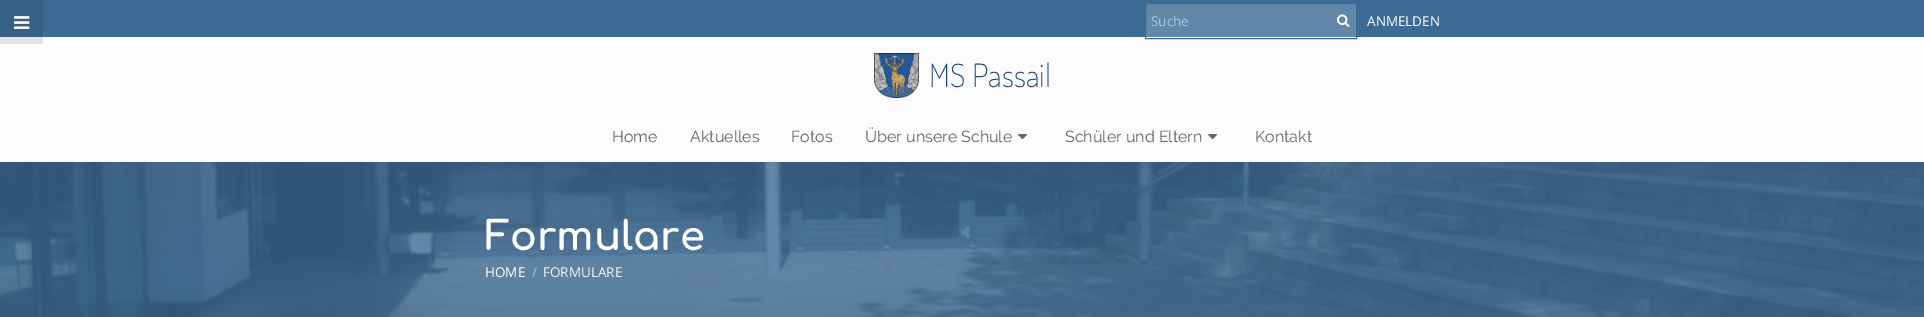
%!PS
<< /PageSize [1924 317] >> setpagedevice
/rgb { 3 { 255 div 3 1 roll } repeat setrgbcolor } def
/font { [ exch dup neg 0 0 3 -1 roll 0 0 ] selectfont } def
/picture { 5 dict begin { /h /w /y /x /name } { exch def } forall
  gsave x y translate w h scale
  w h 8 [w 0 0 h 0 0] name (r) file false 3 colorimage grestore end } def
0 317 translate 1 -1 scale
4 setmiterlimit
252 252 252 rgb
0 0 1924 317 rectfill
[
  [0 37 43 7 227 227 227]
  [43 0 1881 37 59 106 148]
  [0 0 43 37 53 95 133]
  [1146 4 210 33 98 136 169]
] { aload pop rgb rectfill } forall
(img/1.rgb) 14 16 16 13 picture
59 106 148 rgb
1145.5 3.5 211 35 rectstroke
(img/2.rgb) 1337 14 13 13 picture
(img/3.rgb) 874 53 45 45 picture
(img/4.rgb) 1018 134 10 6 picture
(img/4.rgb) 1208 134 10 6 picture
(img/5.rgb) 0 162 1924 155 picture
/OpenSans-Regular 13.5 font
177 195 212 rgb
1151 26 moveto (Suche) show
255 255 255 rgb
1367 26 moveto (ANMELDEN) show
/Dosis-ExtraLight 32 font
27 73 125 rgb
929 87 moveto (MS Passail) show
/Raleway-Regular 16 font
102 102 102 rgb
[
  [(Home) 612 142]
  [(Aktuelles) 690 142]
  [(Fotos) 791 142]
  [(Über unsere Schule) 865 142]
  [(Schüler und Eltern) 1065 142]
  [(Kontakt) 1255 142]
] { aload pop moveto show } forall
/Comfortaa-Bold 40 font
255 255 255 rgb
485 250 moveto (Formulare) show
/OpenSans-Regular 13.5 font
485 277 moveto (HOME) show
177 195 212 rgb
532 277 moveto (/) show
239 242 246 rgb
543 277 moveto (FORMULARE) show
showpage
